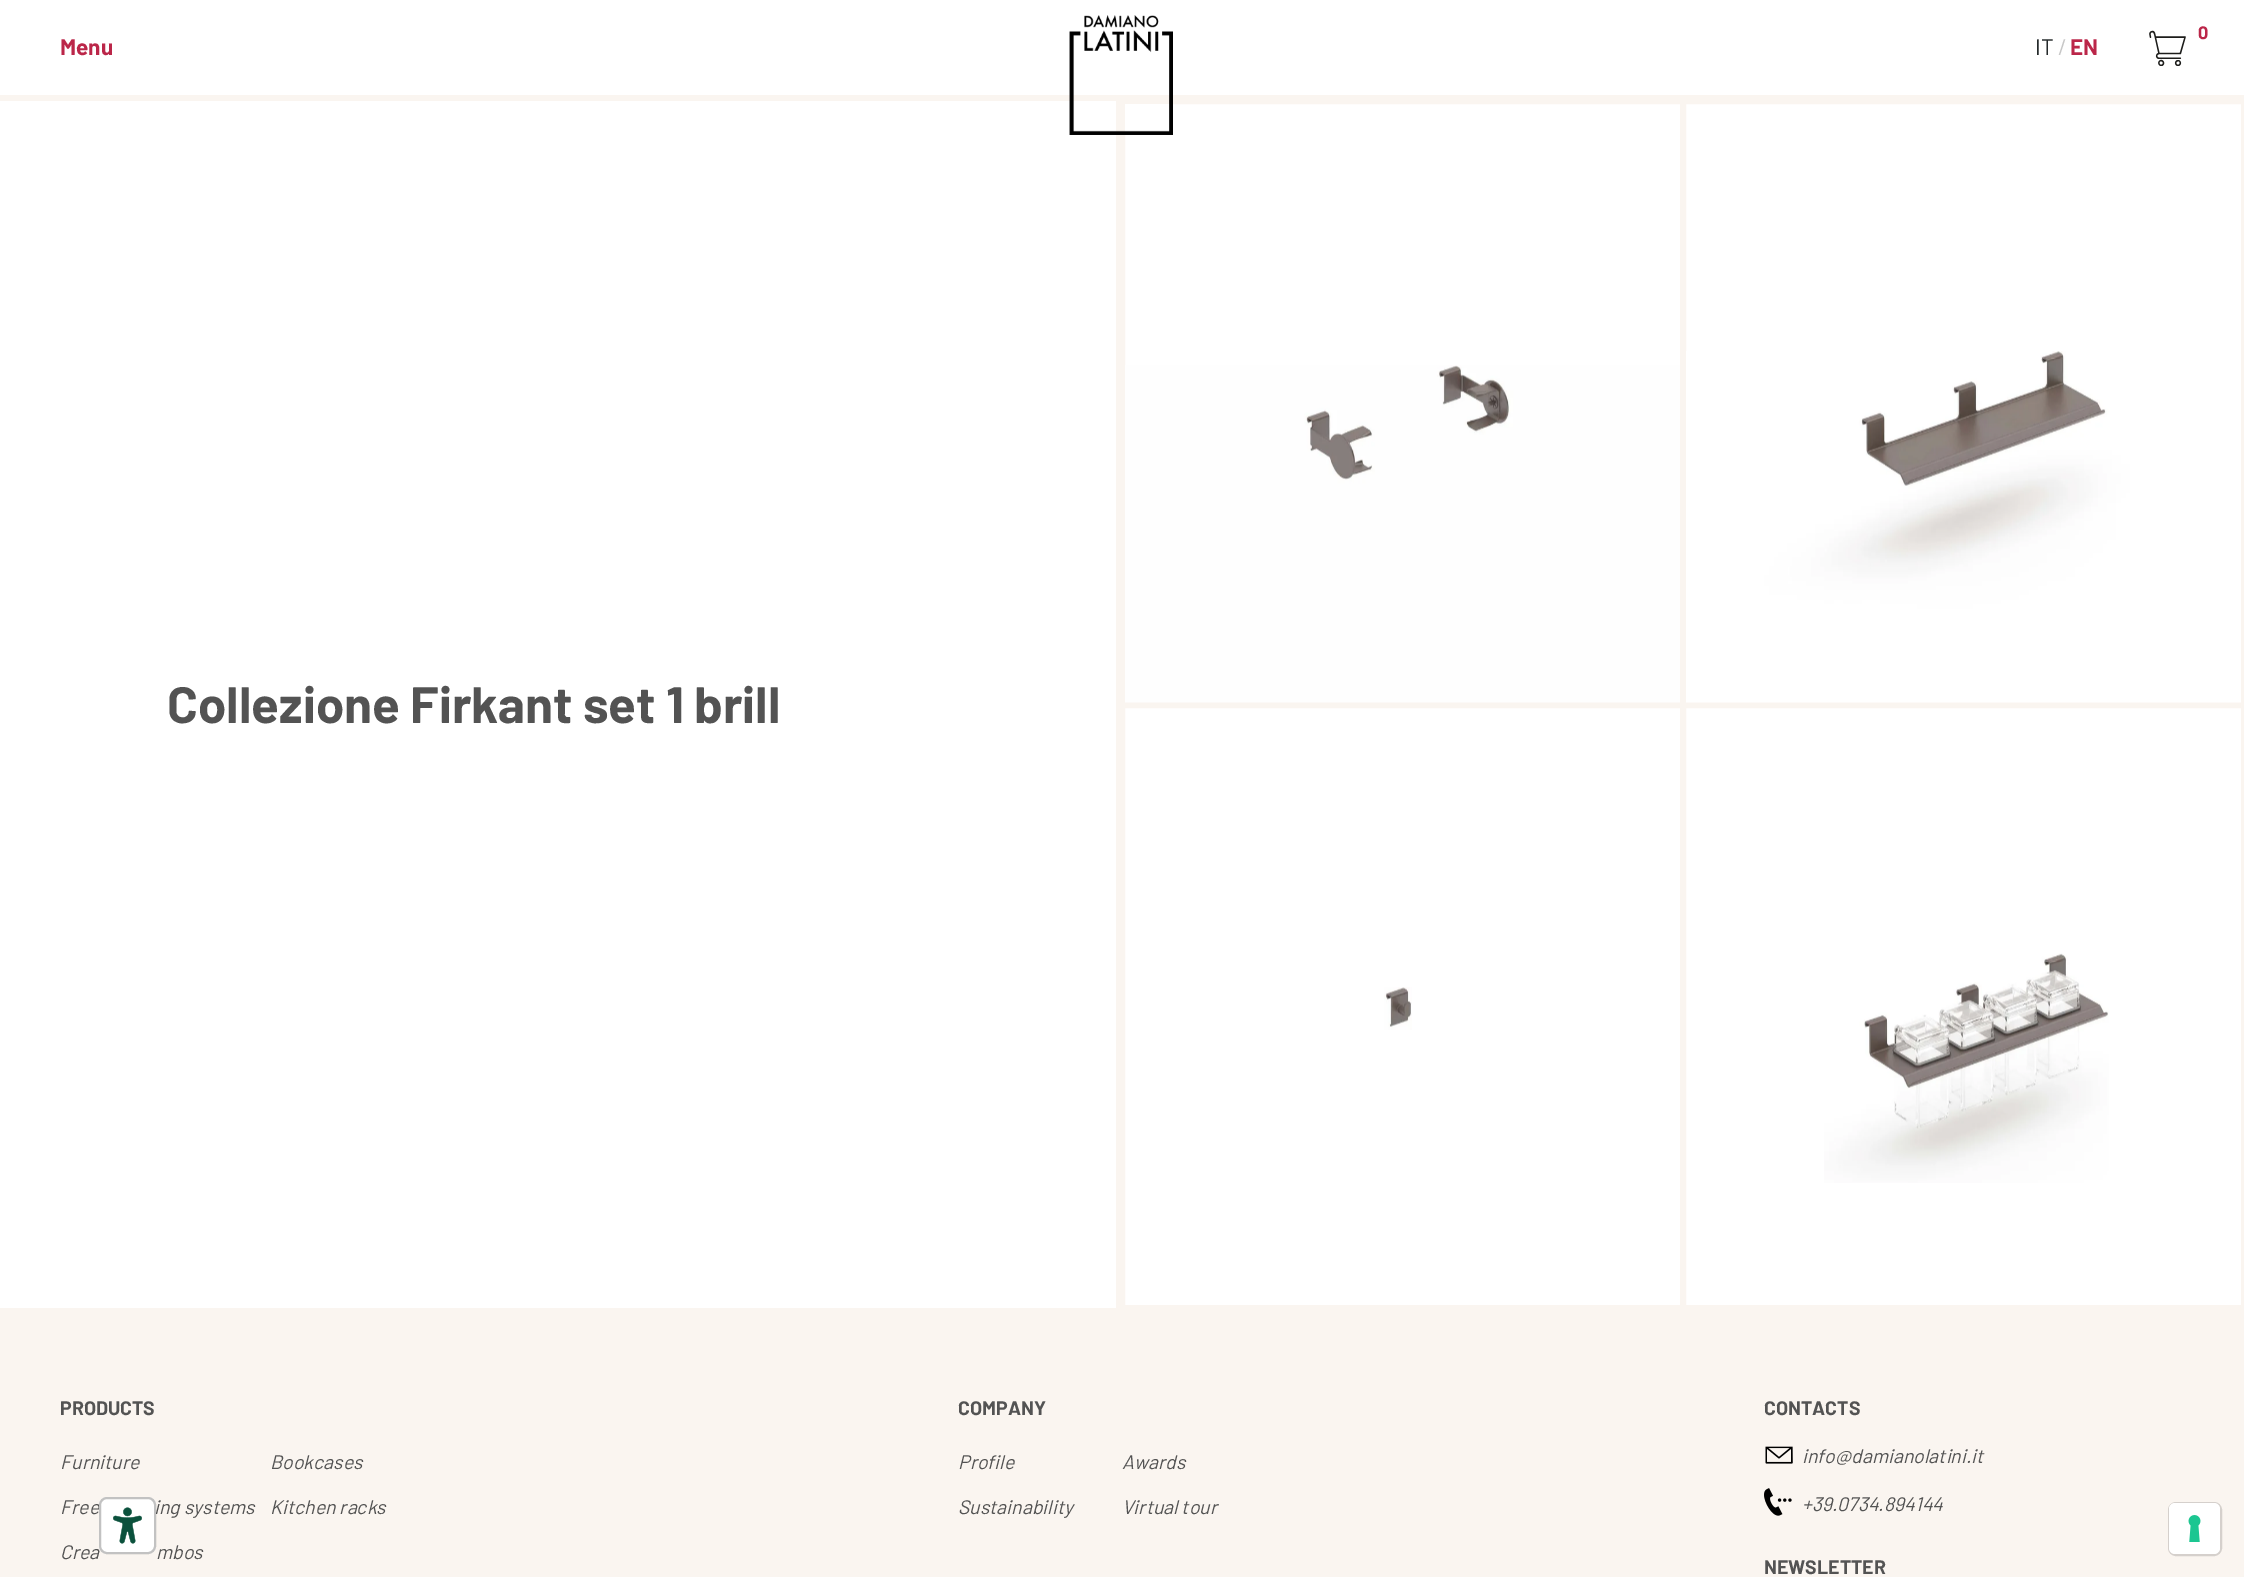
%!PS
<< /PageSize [2244 1577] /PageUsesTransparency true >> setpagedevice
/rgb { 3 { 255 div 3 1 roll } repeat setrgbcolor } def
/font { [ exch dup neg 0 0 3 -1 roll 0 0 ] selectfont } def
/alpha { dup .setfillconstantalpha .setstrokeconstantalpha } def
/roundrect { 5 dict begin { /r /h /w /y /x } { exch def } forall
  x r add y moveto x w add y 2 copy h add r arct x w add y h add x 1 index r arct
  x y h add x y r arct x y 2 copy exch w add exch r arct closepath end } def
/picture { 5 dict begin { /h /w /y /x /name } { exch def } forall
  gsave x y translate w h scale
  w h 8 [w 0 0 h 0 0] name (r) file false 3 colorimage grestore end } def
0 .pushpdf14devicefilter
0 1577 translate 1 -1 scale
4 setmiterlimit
255 255 255 rgb
0 0 2244 1577 rectfill
250 245 240 rgb
0 95 2244 6 rectfill
1116 101 6 1207 rectfill
3 setlinewidth
1123.5 102.5 558 601 rectstroke
(img/1.rgb) 1069 15 104 120 picture
(img/2.rgb) 2149 30 37 36 picture
(img/3.rgb) 1125 365 555 338 picture
1684.5 102.5 558 601 rectstroke
(img/4.rgb) 1686 351 555 352 picture
1123.5 706.5 558 600 rectstroke
(img/5.rgb) 1384 987 28 43 picture
1684.5 706.5 558 600 rectstroke
(img/6.rgb) 1824 953 285 230 picture
0 1308 2244 269 rectfill
(img/7.rgb) 1765 1446 28 18 picture
(img/8.rgb) 1764 1488 28 28 picture
213 208 204 rgb
2 setlinewidth
2169 1503 52 52 7 roundrect stroke
255 255 255 rgb
2169 1503 51 51 6 roundrect fill
(img/10.rgb) 2188 1515 13 27 picture
/Barlow-Bold 22.5 font
187 38 73 rgb
60 55 moveto (Menu) show
/Barlow-Bold 18 font
2198 39 moveto (0) show
/Barlow-Regular 22.5 font
37 42 43 rgb
2035 55 moveto (IT) show
199 199 199 rgb
2058 55 moveto (/) show
/Barlow-Bold 22.5 font
187 38 73 rgb
2070 55 moveto (EN) show
/Barlow-Bold 51 font
83 83 83 rgb
167 723 moveto (Collezione Firkant set 1 brill) show
/Barlow-Bold 19.5 font
60 1415 moveto (PRODUCTS) show
/Barlow-Italic 19.5 font
[
  [(Furniture) 60 1469]
  [(Bookcases) 270 1469]
  [(Free) 60 1514]
  [(ing systems) 154 1514]
  [(Kitchen racks) 270 1514]
  [(Crea) 60 1559]
  [(mbos) 156 1559]
] { aload pop moveto show } forall
/Barlow-Bold 19.5 font
958 1415 moveto (COMPANY) show
/Barlow-Italic 19.5 font
[
  [(Profile) 958 1469]
  [(Awards) 1122 1469]
  [(Sustainability) 958 1514]
  [(Virtual tour) 1122 1514]
] { aload pop moveto show } forall
/Barlow-Bold 19.5 font
1764 1415 moveto (CONTACTS) show
/Barlow-Italic 19.5 font
1802 1463 moveto (info@damianolatini.it) show
1802 1511 moveto (+39.0734.894144) show
/Barlow-Bold 19.5 font
1764 1574 moveto (NEWSLETTER) show
255 255 255 rgb
99 1497 57 57 8 roundrect fill
(img/9.rgb) 113 1507 29 37 picture
0.24 alpha
0 0 0 rgb
100 1498 55 55 7 roundrect stroke
.poppdf14devicefilter showpage
